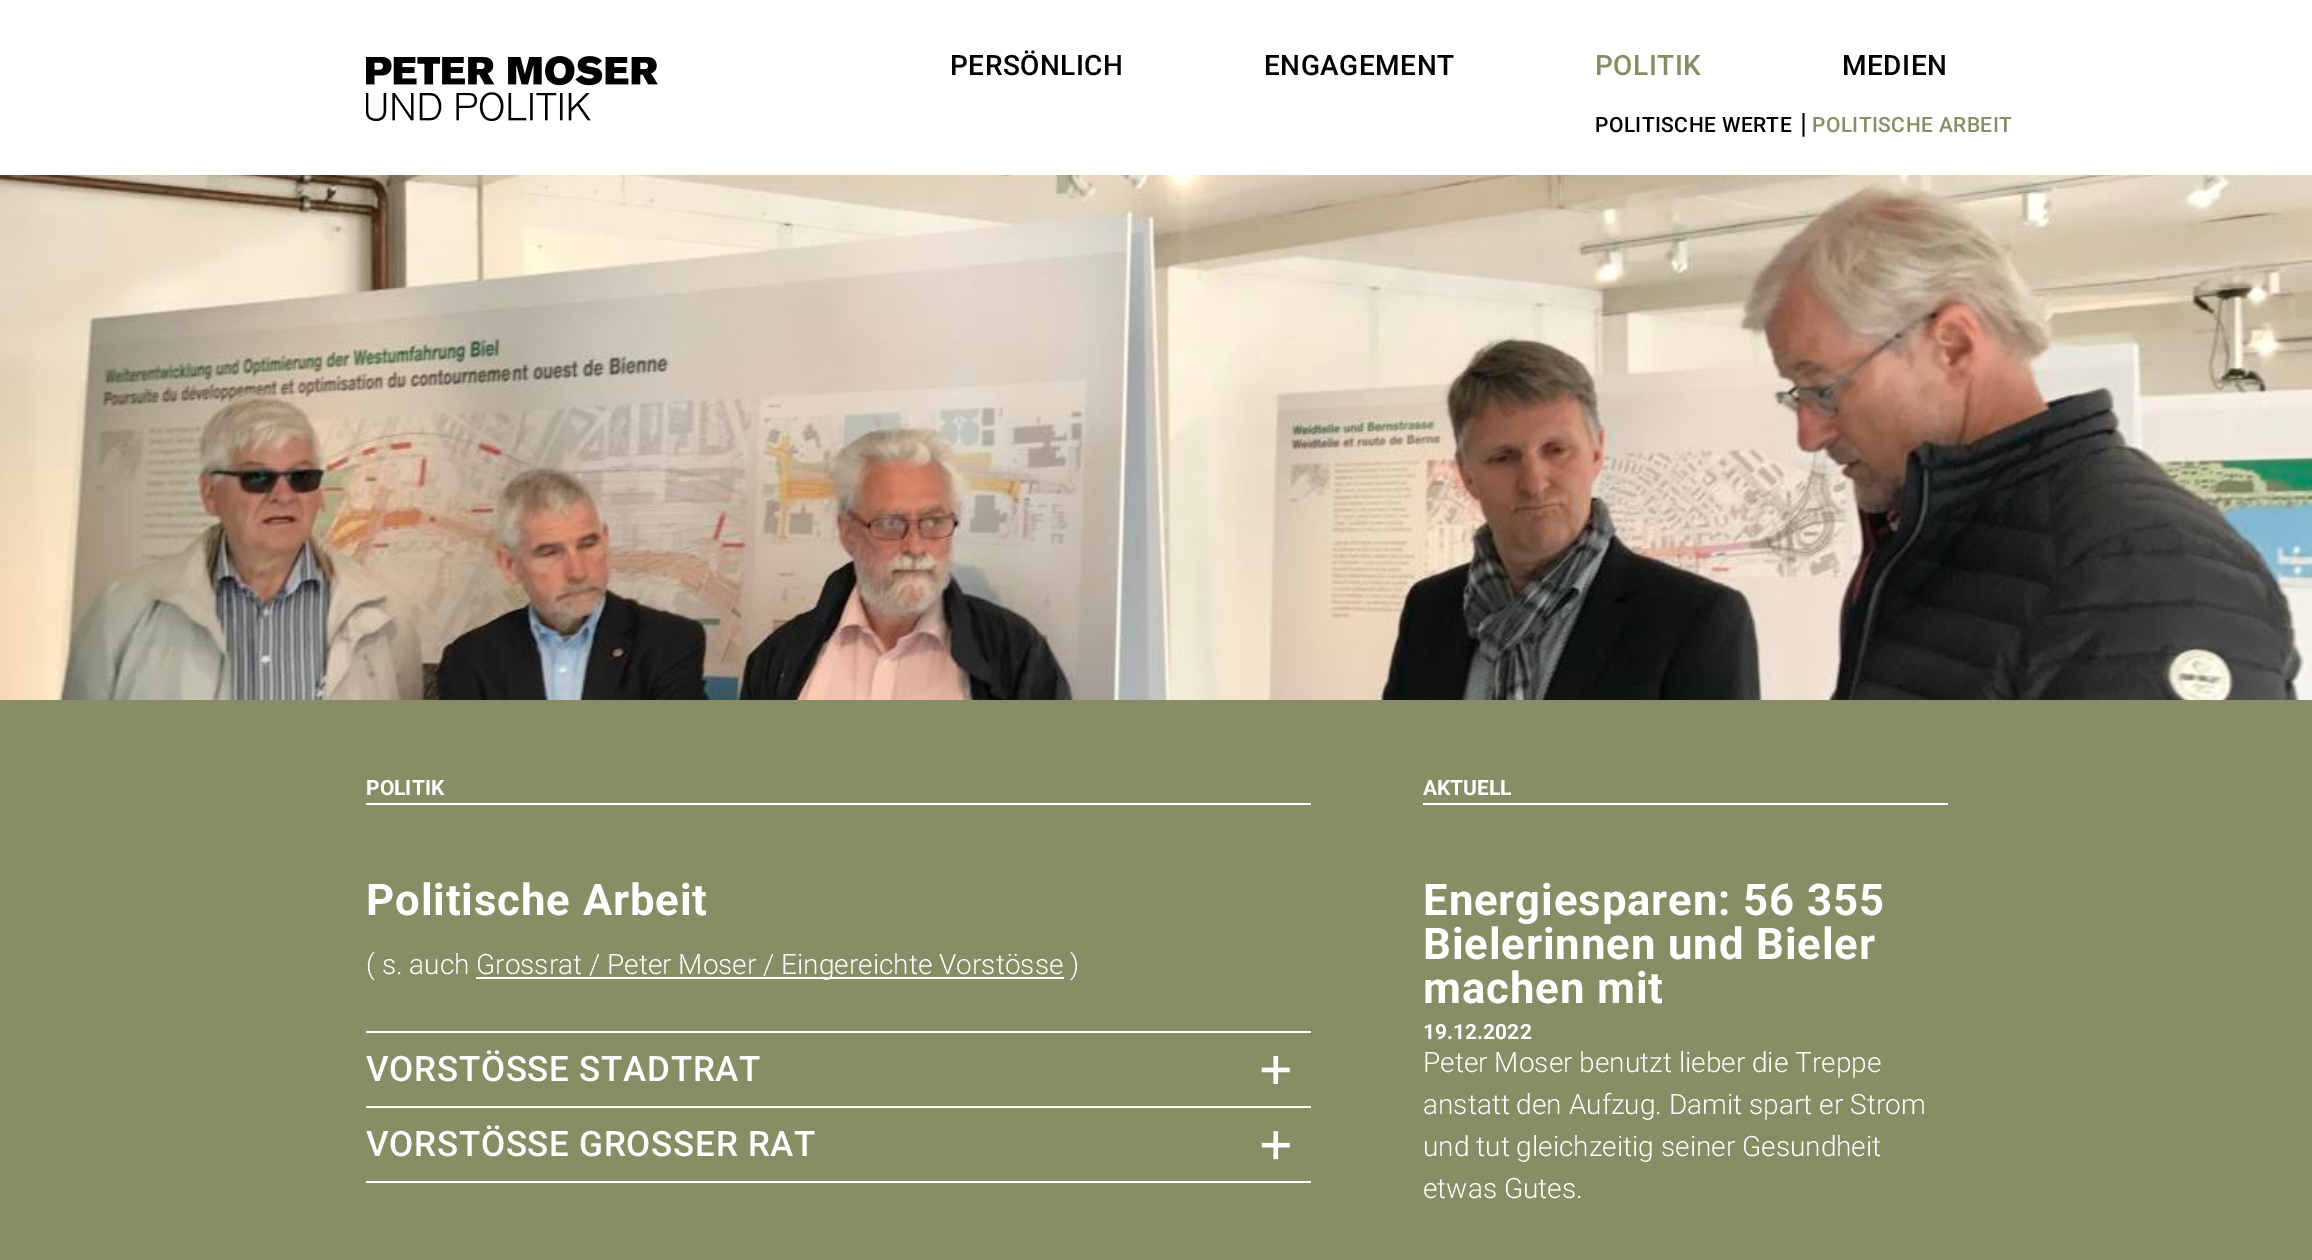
%!PS
<< /PageSize [2312 1260] >> setpagedevice
/rgb { 3 { 255 div 3 1 roll } repeat setrgbcolor } def
/font { [ exch dup neg 0 0 3 -1 roll 0 0 ] selectfont } def
/picture { 5 dict begin { /h /w /y /x /name } { exch def } forall
  gsave x y translate w h scale
  w h 8 [w 0 0 h 0 0] name (r) file false 3 colorimage grestore end } def
0 1260 translate 1 -1 scale
4 setmiterlimit
137 141 102 rgb
0 0 2312 1260 rectfill
255 255 255 rgb
0 0 2312 175 rectfill
(img/1.rgb) 366 56 292 65 picture
(img/2.rgb) 0 175 2312 525 picture
[
  [366 803 945 2 255 255 255]
  [476 977 588 2 255 255 255]
  [366 1031 945 2 255 255 255]
  [366 1106 945 2 255 255 255]
] { aload pop rgb rectfill } forall
(img/3.rgb) 1261 1055 29 29 picture
366 1181 945 2 rectfill
(img/4.rgb) 1261 1131 29 29 picture
1423 803 525 2 rectfill
/Roboto-Medium 28 font
0 0 0 rgb
950 75 moveto 0.5 0 (PERSÖNLICH) ashow
1264 75 moveto 0.5 0 (ENGAGEMENT) ashow
137 141 102 rgb
1595 75 moveto 0.5 0 (POLITIK) ashow
/Roboto-Medium 21 font
0 0 0 rgb
1595 132 moveto 0.4 0 (POLITISCHE WERTE) ashow
/Roboto-Medium 28 font
1800 133 moveto (|) show
/Roboto-Medium 21 font
137 141 102 rgb
1812 132 moveto 0.4 0 (POLITISCHE ARBEIT) ashow
/Roboto-Medium 28 font
0 0 0 rgb
1842 75 moveto 0.5 0 (MEDIEN) ashow
/Roboto-Bold 21 font
255 255 255 rgb
366 795 moveto (POLITIK) show
/Roboto-Bold 43.75 font
366 915 moveto 0.9 0 (Politische Arbeit) ashow
/Roboto-Light 28 font
366 974 moveto (\( s. auch) show
476 974 moveto (Grossrat / Peter Moser / Eingereichte Vorstösse \)) show
/Roboto-Medium 35 font
366 1081 moveto 0.7 0 (VORSTÖSSE STADTRAT) ashow
366 1156 moveto 0.7 0 (VORSTÖSSE GROSSER RAT) ashow
/Roboto-Bold 21 font
1423 795 moveto (AKTUELL) show
/Roboto-Bold 43.75 font
1423 915 moveto 0.9 0 (Energiesparen: 56 355) ashow
1423 959 moveto 0.9 0 (Bielerinnen und Bieler) ashow
1423 1003 moveto 0.9 0 (machen mit) ashow
/Roboto-Bold 21 font
1423 1039 moveto (19.12.2022) show
/Roboto-Light 28 font
[
  [(Peter Moser benutzt lieber die Treppe) 1423 1072]
  [(anstatt den Aufzug. Damit spart er Strom) 1423 1114]
  [(und tut gleichzeitig seiner Gesundheit) 1423 1156]
  [(etwas Gutes.) 1423 1198]
] { aload pop moveto show } forall
showpage
